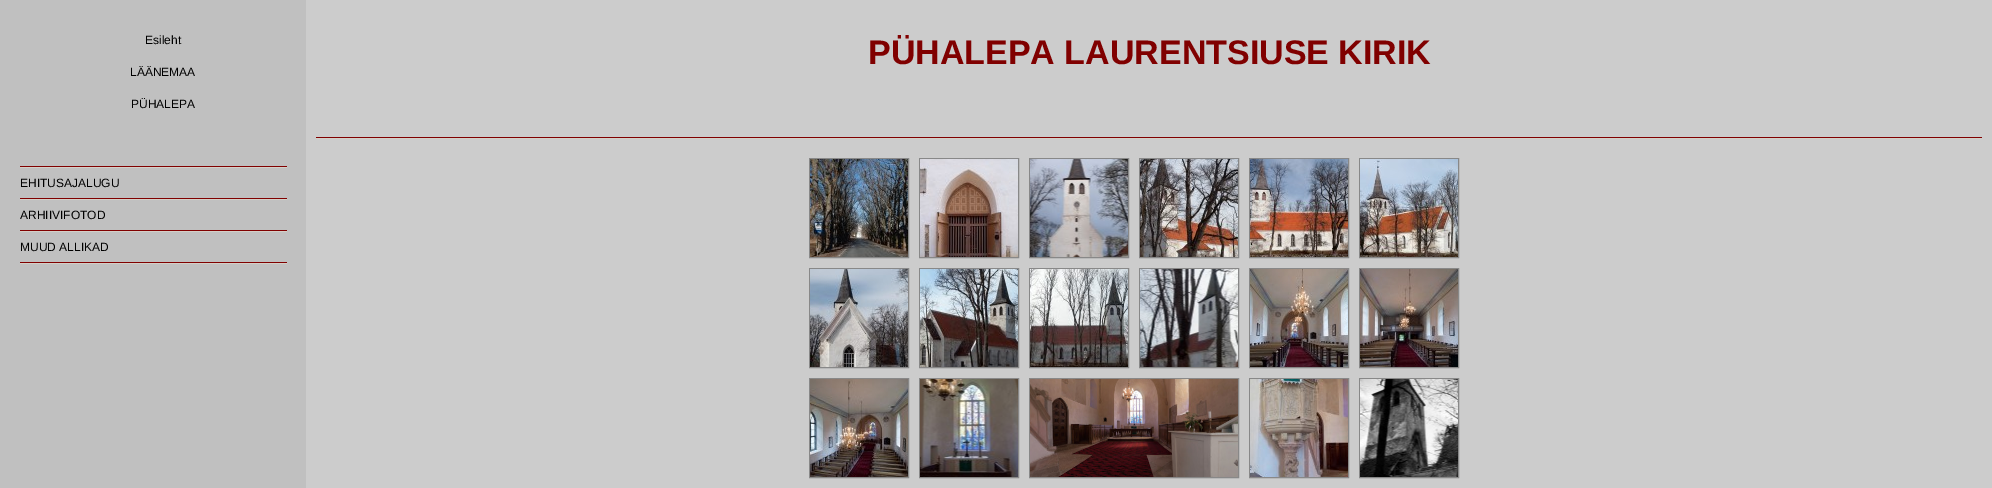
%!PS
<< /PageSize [1992 488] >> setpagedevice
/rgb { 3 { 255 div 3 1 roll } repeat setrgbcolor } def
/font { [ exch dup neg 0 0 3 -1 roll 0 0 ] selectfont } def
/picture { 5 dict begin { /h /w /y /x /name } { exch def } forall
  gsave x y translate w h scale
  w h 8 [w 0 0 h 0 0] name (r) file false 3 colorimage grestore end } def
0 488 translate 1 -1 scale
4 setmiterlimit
204 204 204 rgb
0 0 1992 488 rectfill
[
  [0 0 306 488 192 192 192]
  [20 166 267 1 128 0 0]
  [20 167 267 1 212 208 200]
  [20 198 267 1 128 0 0]
  [20 199 267 1 212 208 200]
  [20 230 267 1 128 0 0]
  [20 263 267 1 212 208 200]
  [20 231 267 1 212 208 200]
  [20 262 267 1 128 0 0]
  [316 137 1666 1 128 0 0]
  [316 138 1666 1 212 208 200]
] { aload pop rgb rectfill } forall
136 136 136 rgb
809.5 158.5 99 99 rectstroke
(img/1.rgb) 810 159 98 98 picture
919.5 158.5 99 99 rectstroke
(img/2.rgb) 920 159 98 98 picture
1029.5 158.5 99 99 rectstroke
(img/3.rgb) 1030 159 98 98 picture
1139.5 158.5 99 99 rectstroke
(img/4.rgb) 1140 159 98 98 picture
1249.5 158.5 99 99 rectstroke
(img/5.rgb) 1250 159 98 98 picture
1359.5 158.5 99 99 rectstroke
(img/6.rgb) 1360 159 98 98 picture
809.5 268.5 99 99 rectstroke
(img/7.rgb) 810 269 98 98 picture
919.5 268.5 99 99 rectstroke
(img/8.rgb) 920 269 98 98 picture
1029.5 268.5 99 99 rectstroke
(img/9.rgb) 1030 269 98 98 picture
1139.5 268.5 99 99 rectstroke
(img/10.rgb) 1140 269 98 98 picture
1249.5 268.5 99 99 rectstroke
(img/11.rgb) 1250 269 98 98 picture
1359.5 268.5 99 99 rectstroke
(img/12.rgb) 1360 269 98 98 picture
809.5 378.5 99 99 rectstroke
(img/13.rgb) 810 379 98 98 picture
919.5 378.5 99 99 rectstroke
(img/14.rgb) 920 379 98 98 picture
1029.5 378.5 209 99 rectstroke
(img/15.rgb) 1030 379 208 98 picture
1249.5 378.5 99 99 rectstroke
(img/16.rgb) 1250 379 98 98 picture
1359.5 378.5 99 99 rectstroke
(img/17.rgb) 1360 379 98 98 picture
/LiberationSans-Regular 12 font
0 0 0 rgb
[
  [(Esileht) 145 44]
  [(LÄÄNEMAA) 130 76]
  [(PÜHALEPA) 131 108]
  [(EHITUSAJALUGU) 20 187]
  [(ARHIIVIFOTOD) 20 219]
  [(MUUD ALLIKAD) 20 251]
] { aload pop moveto show } forall
/LiberationSans-Bold 34 font
128 0 0 rgb
868 64 moveto (PÜHALEPA LAURENTSIUSE KIRIK) show
showpage
